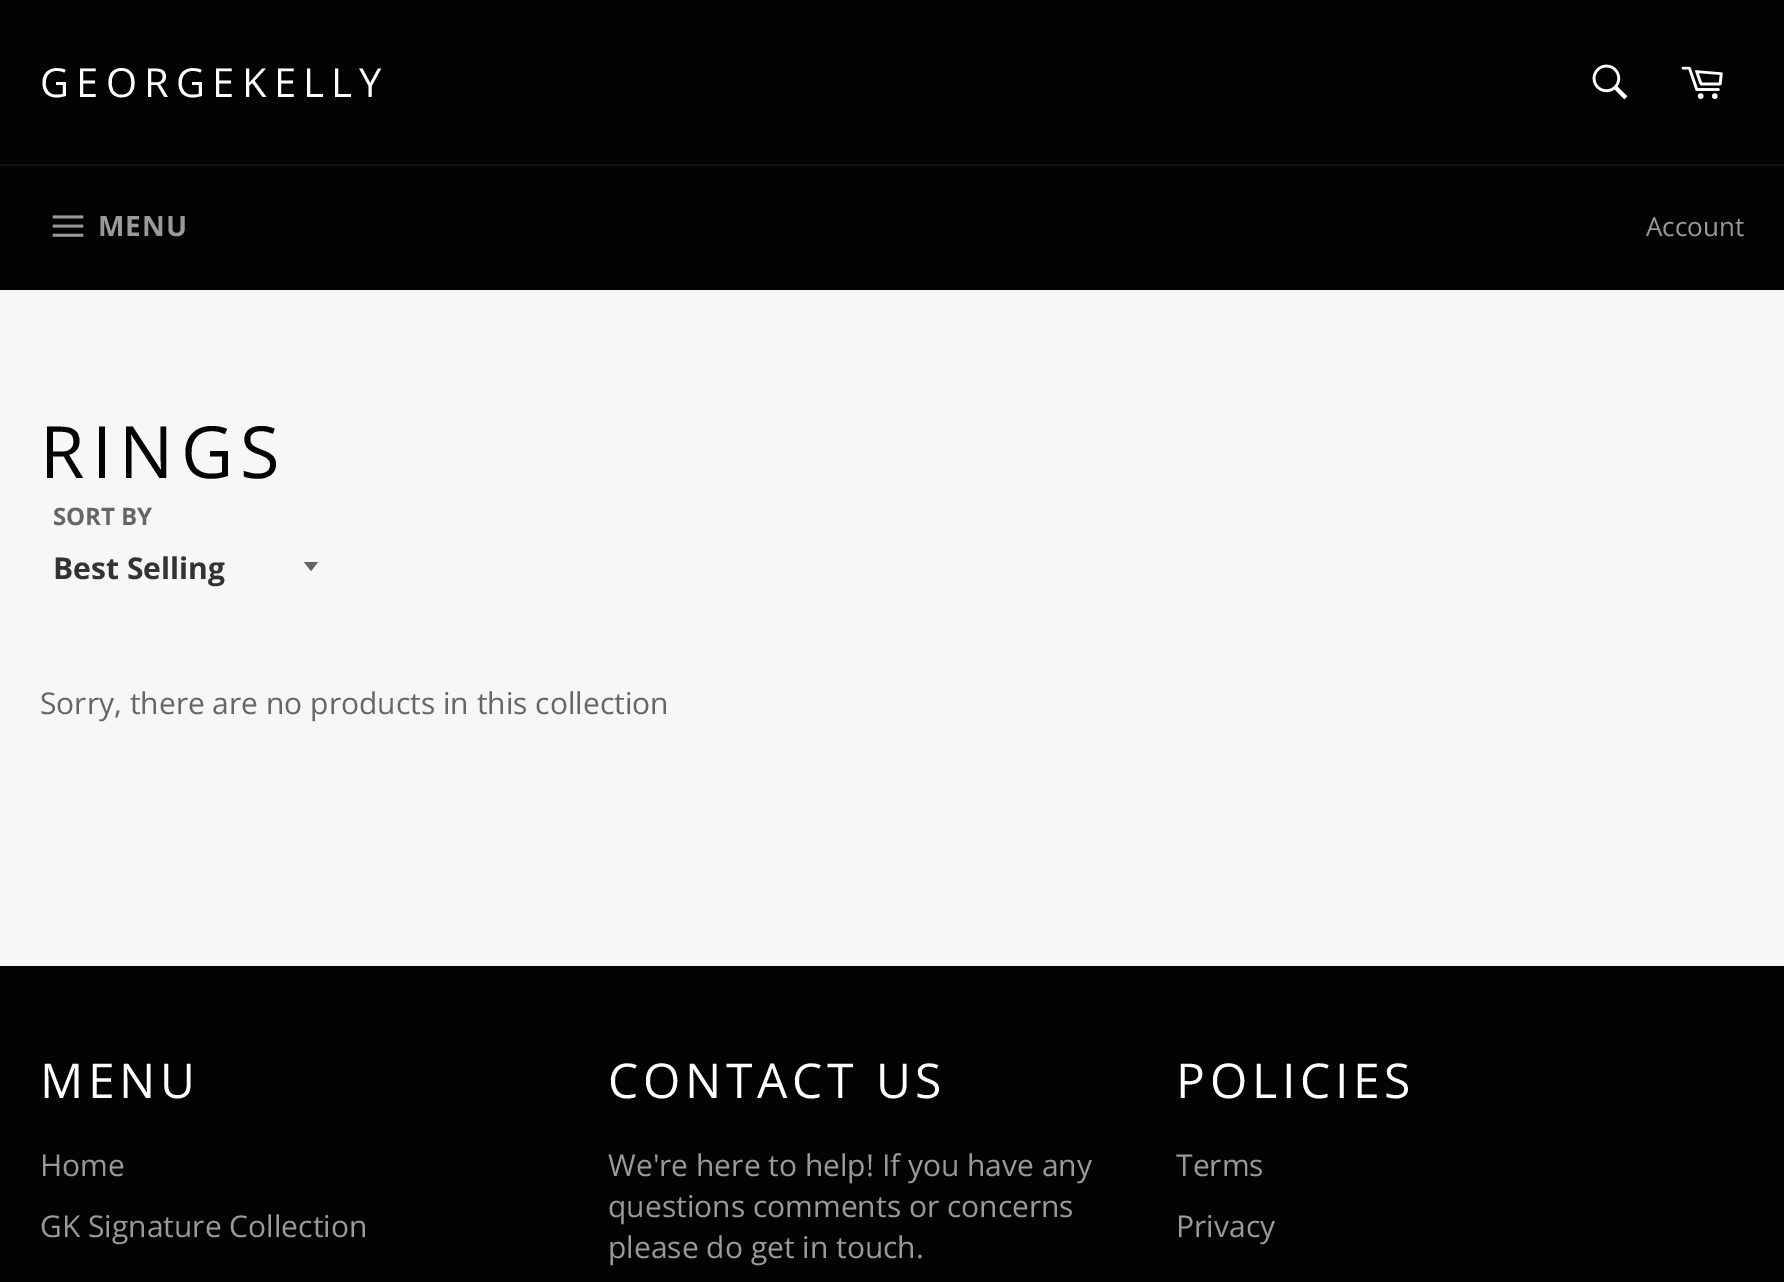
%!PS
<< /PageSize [1784 1282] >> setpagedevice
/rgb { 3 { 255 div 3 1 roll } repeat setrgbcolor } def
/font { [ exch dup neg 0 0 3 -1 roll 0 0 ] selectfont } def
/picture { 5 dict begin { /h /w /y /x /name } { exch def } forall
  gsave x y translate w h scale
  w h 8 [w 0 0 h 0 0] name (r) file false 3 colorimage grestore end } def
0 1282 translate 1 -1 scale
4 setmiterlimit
247 247 247 rgb
0 0 1784 1282 rectfill
3 3 3 rgb
0 0 1784 164 rectfill
(img/1.rgb) 1592 64 36 36 picture
(img/2.rgb) 1681 66 42 33 picture
0 166 1784 124 rectfill
16 16 16 rgb
0 164 1784 2 rectfill
(img/3.rgb) 52 215 32 22 picture
102 102 102 rgb
304 562 moveto 311 571 lineto 318 562 lineto closepath fill
3 3 3 rgb
0 966 1784 316 rectfill
/OpenSans-Regular 40 font
255 255 255 rgb
40 97 moveto 7.25 0 (GEORGEKELLY) ashow
/OpenSans-Bold 28 font
154 154 154 rgb
98 236 moveto 1 0 (MENU) ashow
/OpenSans-Regular 26 font
1646 236 moveto (Account) show
/OpenSans-Regular 72 font
3 3 3 rgb
40 478 moveto 7.25 0 (RINGS) ashow
/OpenSans-Bold 24 font
102 102 102 rgb
53 525 moveto (SORT BY) show
/OpenSans-Bold 30 font
51 51 51 rgb
53 579 moveto (Best Selling) show
/OpenSans-Regular 30 font
102 102 102 rgb
40 714 moveto (Sorry, there are no products in this collection) show
/OpenSans-Regular 48 font
255 255 255 rgb
40 1098 moveto 4.75 0 (MENU) ashow
/OpenSans-Regular 30 font
154 154 154 rgb
40 1176 moveto (Home) show
40 1237 moveto (GK Signature Collection) show
/OpenSans-Regular 48 font
255 255 255 rgb
608 1098 moveto 4.75 0 (CONTACT US) ashow
/OpenSans-Regular 30 font
154 154 154 rgb
[
  [(We're here to help! If you have any) 608 1176]
  [(questions comments or concerns) 608 1217]
  [(please do get in touch.) 608 1258]
] { aload pop moveto show } forall
/OpenSans-Regular 48 font
255 255 255 rgb
1176 1098 moveto 4.75 0 (POLICIES) ashow
/OpenSans-Regular 30 font
154 154 154 rgb
1176 1176 moveto (Terms) show
1176 1237 moveto (Privacy) show
showpage
